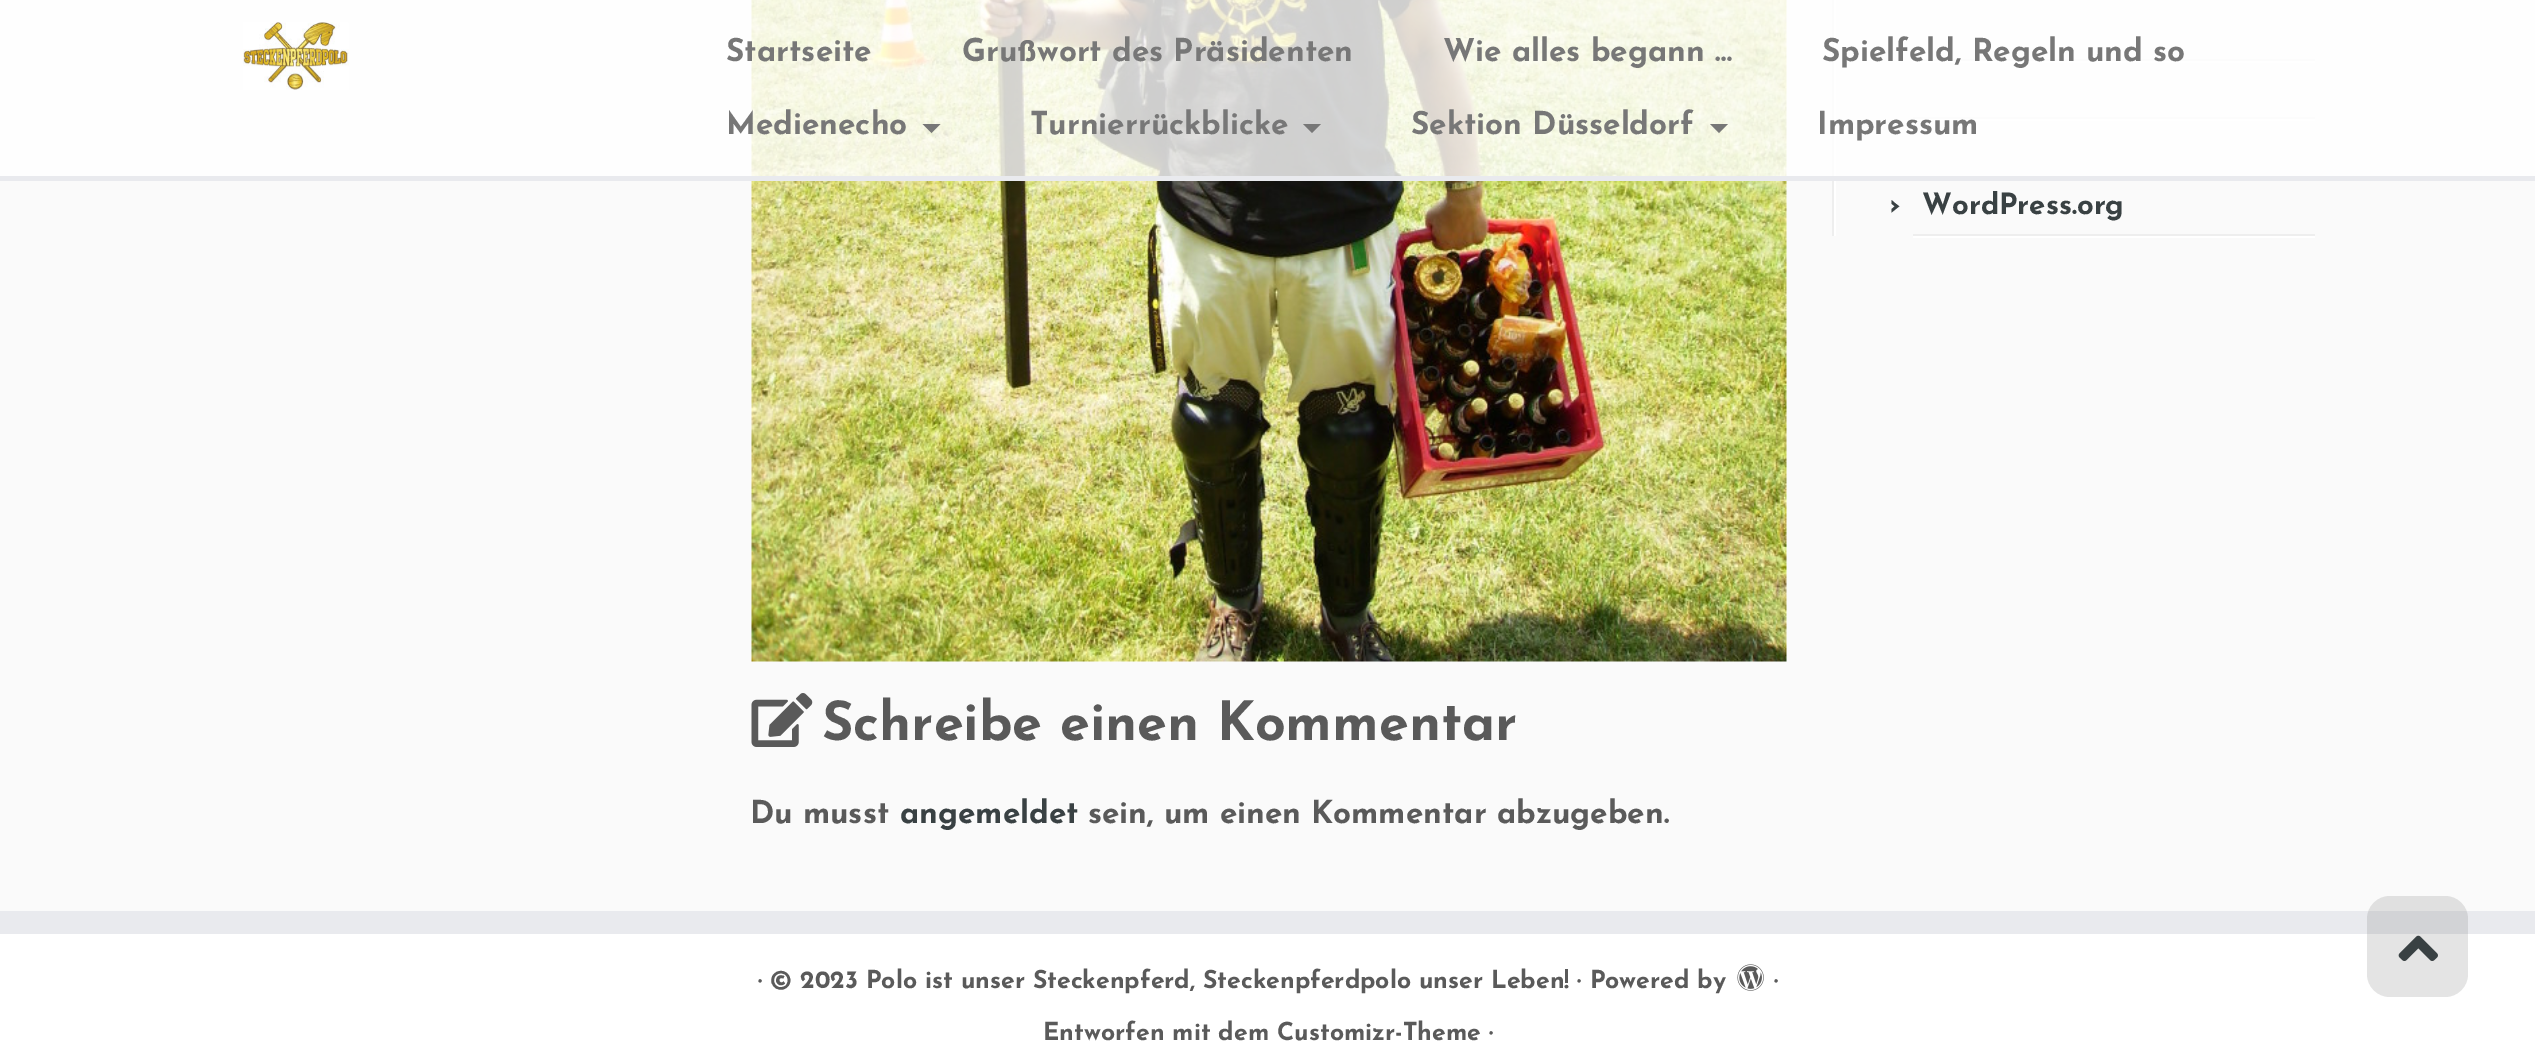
%!PS
<< /PageSize [2535 1052] /PageUsesTransparency true >> setpagedevice
/rgb { 3 { 255 div 3 1 roll } repeat setrgbcolor } def
/font { [ exch dup neg 0 0 3 -1 roll 0 0 ] selectfont } def
/alpha { dup .setfillconstantalpha .setstrokeconstantalpha } def
/roundrect { 5 dict begin { /r /h /w /y /x } { exch def } forall
  x r add y moveto x w add y 2 copy h add r arct x w add y h add x 1 index r arct
  x y h add x y r arct x y 2 copy exch w add exch r arct closepath end } def
/picture { 5 dict begin { /h /w /y /x /name } { exch def } forall
  gsave x y translate w h scale
  w h 8 [w 0 0 h 0 0] name (r) file false 3 colorimage grestore end } def
0 .pushpdf14devicefilter
0 1052 translate 1 -1 scale
4 setmiterlimit
250 250 250 rgb
0 0 2535 1052 rectfill
[
  [1832 0 2 236 238 238 238]
  [1834 0 2 236 255 255 255]
  [1913 59 402 2 238 238 238]
  [1913 61 402 2 255 255 255]
  [1913 117 402 2 238 238 238]
  [1913 119 402 2 255 255 255]
] { aload pop rgb rectfill } forall
(img/2.rgb) 751 0 1036 662 picture
0.8 alpha
0 0 2535 176 rectfill
1 alpha
233 234 238 rgb
0 176 2535 5 rectfill
(img/1.rgb) 243 22 106 68 picture
119 119 119 rgb
922.5 124 moveto 940.5 124 lineto 931.5 133 lineto closepath fill
1303 124 moveto 1321 124 lineto 1312 133 lineto closepath fill
1710 124 moveto 1728 124 lineto 1719 133 lineto closepath fill
238 238 238 rgb
1913 234 402 2 rectfill
255 255 255 rgb
1913 236 402 2 rectfill
(img/3.rgb) 751 693 62 54 picture
233 234 238 rgb
0 911 2535 23 rectfill
255 255 255 rgb
0 934 2535 118 rectfill
(img/4.rgb) 1737 964 27 27 picture
0.2 alpha
119 119 119 rgb
2367 896 101 101 23 roundrect fill
1 alpha
(img/5.rgb) 2398 935 40 26 picture
/JosefinSans-Bold 31.5 font
[
  [(Startseite) 726 61]
  [(Grußwort des Präsidenten) 962 61]
  [(Wie alles begann …) 1443 61]
  [(Spielfeld, Regeln und so) 1822 61]
  [(Medienecho) 726 134]
  [(Turnierrückblicke) 1030 134]
  [(Sektion Düsseldorf) 1411 134]
  [(Impressum) 1817 134]
] { aload pop moveto show } forall
57 65 67 rgb
1889 214 moveto (›) show
/JosefinSans-Bold 29.25 font
1922 214 moveto (WordPress.org) show
/JosefinSans-Bold 54 font
90 90 90 rgb
822 740 moveto (Schreibe einen Kommentar) show
/JosefinSans-Bold 31.5 font
750 823 moveto (Du musst) show
57 65 67 rgb
900 823 moveto (angemeldet) show
90 90 90 rgb
1088 823 moveto (sein, um einen Kommentar abzugeben.) show
/JosefinSans-Bold 24.75 font
[
  [(· © 2023 Polo ist unser Steckenpferd, Steckenpferdpolo unser Leben! · Powered by) 758 988]
  [(·) 1774 988]
  [(Entworfen mit dem Customizr-Theme ·) 1043 1040]
] { aload pop moveto show } forall
.poppdf14devicefilter showpage
